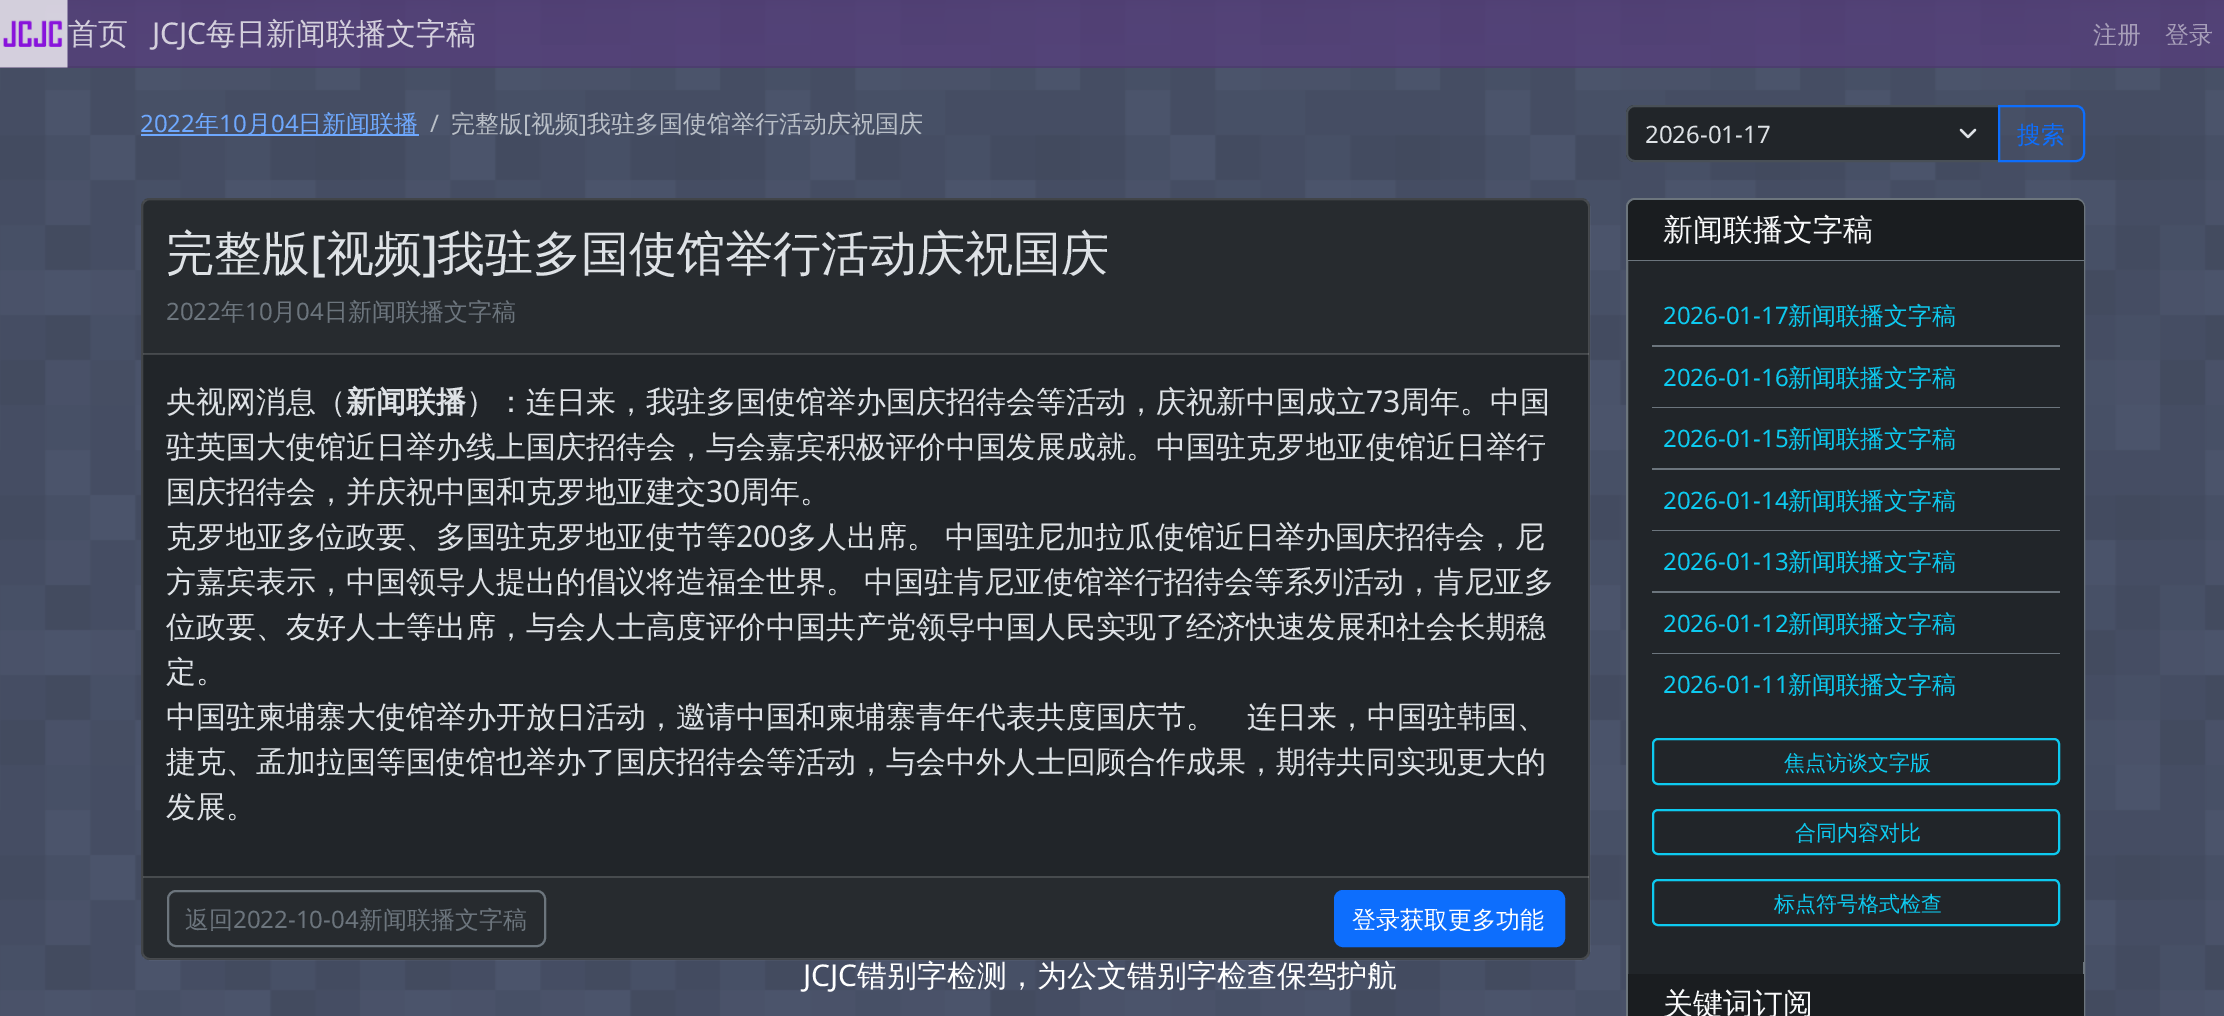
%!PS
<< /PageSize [2224 1016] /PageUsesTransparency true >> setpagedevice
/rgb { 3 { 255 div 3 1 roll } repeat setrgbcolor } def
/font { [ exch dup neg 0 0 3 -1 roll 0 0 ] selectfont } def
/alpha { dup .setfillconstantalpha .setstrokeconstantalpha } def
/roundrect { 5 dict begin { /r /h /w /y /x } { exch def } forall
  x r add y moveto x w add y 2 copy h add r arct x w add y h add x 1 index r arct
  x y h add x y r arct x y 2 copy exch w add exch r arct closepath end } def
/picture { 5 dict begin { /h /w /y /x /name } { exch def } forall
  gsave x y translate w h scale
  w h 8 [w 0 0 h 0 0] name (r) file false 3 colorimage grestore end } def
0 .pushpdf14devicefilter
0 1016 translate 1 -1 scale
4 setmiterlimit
75 84 107 rgb
0 0 2224 1016 rectfill
(img/1.rgb) 0 0 2224 1016 picture
0.75 alpha
86 61 124 rgb
0 0 2224 68 rectfill
0.08 alpha
0 0 0 rgb
0 66 2224 2 rectfill
1 alpha
(img/2.rgb) 0 0 68 68 picture
110 168 254 rgb
141 134 278 2 rectfill
33 37 41 rgb
1635 105 moveto 2000 105 lineto 2000 162 lineto 1635 162 lineto 1630 162 1626 158 1626 153 curveto 1626 114 lineto 1626 109 1630 105 1635 105 curveto closepath fill
222 226 230 rgb
2.2 setlinewidth
1 setlinecap
1 setlinejoin
1961 130 moveto 1968 137 lineto 1975 130 lineto stroke
73 80 87 rgb
2 setlinewidth
0 setlinecap
0 setlinejoin
1635 106 moveto 1999 106 lineto 1999 161 lineto 1635 161 lineto 1630.5 161 1627 157.5 1627 153 curveto 1627 114 lineto 1627 109.5 1630.5 106 1635 106 curveto closepath stroke
13 110 253 rgb
1999 106 moveto 2076 106 lineto 2080.5 106 2084 109.5 2084 114 curveto 2084 153 lineto 2084 157.5 2080.5 161 2076 161 curveto 1999 161 lineto closepath stroke
33 37 41 rgb
141 198 1449 762 9 roundrect fill
0.15 alpha
255 255 255 rgb
142 199 1447 760 8 roundrect stroke
0.03 alpha
[
  [143 200 1446 154 222 226 230]
] { aload pop rgb rectfill } forall
0.15 alpha
[
  [143 353 1446 2 255 255 255]
] { aload pop rgb rectfill } forall
0.03 alpha
[
  [143 876 1446 83 222 226 230]
] { aload pop rgb rectfill } forall
0.15 alpha
[
  [143 876 1446 2 255 255 255]
] { aload pop rgb rectfill } forall
1 alpha
108 117 125 rgb
168 891 377 55 8 roundrect stroke
13 110 253 rgb
1335 891 229 55 8 roundrect gsave fill grestore
stroke
33 37 41 rgb
1627 199 457 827 8 roundrect gsave fill grestore
108 117 125 rgb
stroke
26 29 32 rgb
1636 200 moveto 2076 200 lineto 2080.5 200 2084 203.5 2084 208 curveto 2084 261 lineto 1628 261 lineto 1628 208 lineto 1628 203.5 1631.5 200 1636 200 curveto closepath fill
[
  [1628 260 456 1 108 117 125]
  [2083 261 1 701 33 37 41]
  [1652 345 408 2 108 117 125]
  [1652 407 408 1 108 117 125]
  [1652 468 408 2 108 117 125]
  [1652 530 408 1 108 117 125]
  [1652 591 408 2 108 117 125]
  [1652 653 408 1 108 117 125]
] { aload pop rgb rectfill } forall
13 202 240 rgb
1653 739 406 45 5 roundrect stroke
1653 810 406 44 5 roundrect stroke
1653 880 406 45 5 roundrect stroke
26 29 32 rgb
1628 974 456 42 rectfill
/WenQuanYiZenHei-Medium 30 font
212 208 221 rgb
68 44 moveto (首页) show
/NotoSans-Regular 30 font
152 44 moveto (JCJC) show
/WenQuanYiZenHei-Medium 30 font
206 44 moveto (每日新闻联播文字稿) show
/WenQuanYiZenHei-Medium 24 font
167 158 185 rgb
2093 43 moveto (注册) show
2165 43 moveto (登录) show
/NotoSans-Regular 24 font
110 168 254 rgb
140 132 moveto (2022) show
/WenQuanYiZenHei-Medium 24 font
195 132 moveto (年) show
/NotoSans-Regular 24 font
219 132 moveto (10) show
/WenQuanYiZenHei-Medium 24 font
247 132 moveto (月) show
/NotoSans-Regular 24 font
271 132 moveto (04) show
/WenQuanYiZenHei-Medium 24 font
298 132 moveto (日新闻联播) show
/NotoSans-Regular 24 font
185 191 199 rgb
430 132 moveto (/) show
/WenQuanYiZenHei-Medium 24 font
451 132 moveto (完整版) show
/NotoSans-Regular 24 font
523 132 moveto ([) show
/WenQuanYiZenHei-Medium 24 font
531 132 moveto (视频) show
/NotoSans-Regular 24 font
579 132 moveto (]) show
/WenQuanYiZenHei-Medium 24 font
587 132 moveto (我驻多国使馆举行活动庆祝国庆) show
/NotoSans-Regular 24 font
222 226 230 rgb
1645 143 moveto (2026-01-17) show
/WenQuanYiZenHei-Medium 24 font
13 110 253 rgb
2017 143 moveto (搜索) show
/WenQuanYiZenHei-Medium 48 font
222 226 230 rgb
166 270 moveto (完整版) show
/NotoSans-Medium 48 font
310 270 moveto ([) show
/WenQuanYiZenHei-Medium 48 font
326 270 moveto (视频) show
/NotoSans-Medium 48 font
422 270 moveto (]) show
/WenQuanYiZenHei-Medium 48 font
437 270 moveto (我驻多国使馆举行活动庆祝国庆) show
/NotoSans-Regular 24 font
108 117 125 rgb
166 320 moveto (2022) show
/WenQuanYiZenHei-Medium 24 font
221 320 moveto (年) show
/NotoSans-Regular 24 font
245 320 moveto (10) show
/WenQuanYiZenHei-Medium 24 font
272 320 moveto (月) show
/NotoSans-Regular 24 font
296 320 moveto (04) show
/WenQuanYiZenHei-Medium 24 font
324 320 moveto (日新闻联播文字稿) show
/WenQuanYiZenHei-Medium 30 font
222 226 230 rgb
166 412 moveto (央视网消息（) show
/WenQuanYiZenHei-Bold 30 font
346 412 moveto (新闻联播) show
/WenQuanYiZenHei-Medium 30 font
466 412 moveto (）：连日来，我驻多国使馆举办国庆招待会等活动，庆祝新中国成立) show
/NotoSans-Regular 30 font
1366 412 moveto (73) show
/WenQuanYiZenHei-Medium 30 font
[
  [(周年。中国) 1400 412]
  [(驻英国大使馆近日举办线上国庆招待会，与会嘉宾积极评价中国发展成就。中国驻克罗地亚使馆近日举行) 166 457]
  [(国庆招待会，并庆祝中国和克罗地亚建交) 166 502]
] { aload pop moveto show } forall
/NotoSans-Regular 30 font
706 502 moveto (30) show
/WenQuanYiZenHei-Medium 30 font
740 502 moveto (周年。) show
166 547 moveto (克罗地亚多位政要、多国驻克罗地亚使节等) show
/NotoSans-Regular 30 font
736 547 moveto (200) show
/WenQuanYiZenHei-Medium 30 font
787 547 moveto -1 0 32 (多人出席。 中国驻尼加拉瓜使馆近日举办国庆招待会，尼) widthshow
166 592 moveto -1 0 32 (方嘉宾表示，中国领导人提出的倡议将造福全世界。 中国驻肯尼亚使馆举行招待会等系列活动，肯尼亚多) widthshow
[
  [(位政要、友好人士等出席，与会人士高度评价中国共产党领导中国人民实现了经济快速发展和社会长期稳) 166 637]
  [(定。) 166 682]
  [(中国驻柬埔寨大使馆举办开放日活动，邀请中国和柬埔寨青年代表共度国庆节。) 166 727]
  [(连日来，中国驻韩国、) 1247 727]
  [(捷克、孟加拉国等国使馆也举办了国庆招待会等活动，与会中外人士回顾合作成果，期待共同实现更大的) 166 772]
  [(发展。) 166 817]
] { aload pop moveto show } forall
/WenQuanYiZenHei-Medium 24 font
108 117 125 rgb
185 928 moveto (返回) show
/NotoSans-Regular 24 font
233 928 moveto (2022-10-04) show
/WenQuanYiZenHei-Medium 24 font
359 928 moveto (新闻联播文字稿) show
255 255 255 rgb
1352 928 moveto (登录获取更多功能) show
/WenQuanYiZenHei-Medium 30 font
248 249 250 rgb
1663 240 moveto (新闻联播文字稿) show
/NotoSans-Regular 24 font
13 202 240 rgb
1663 324 moveto (2026-01-17) show
/WenQuanYiZenHei-Medium 24 font
1788 324 moveto (新闻联播文字稿) show
/NotoSans-Regular 24 font
1663 386 moveto (2026-01-16) show
/WenQuanYiZenHei-Medium 24 font
1788 386 moveto (新闻联播文字稿) show
/NotoSans-Regular 24 font
1663 447 moveto (2026-01-15) show
/WenQuanYiZenHei-Medium 24 font
1788 447 moveto (新闻联播文字稿) show
/NotoSans-Regular 24 font
1663 509 moveto (2026-01-14) show
/WenQuanYiZenHei-Medium 24 font
1788 509 moveto (新闻联播文字稿) show
/NotoSans-Regular 24 font
1663 570 moveto (2026-01-13) show
/WenQuanYiZenHei-Medium 24 font
1788 570 moveto (新闻联播文字稿) show
/NotoSans-Regular 24 font
1663 632 moveto (2026-01-12) show
/WenQuanYiZenHei-Medium 24 font
1788 632 moveto (新闻联播文字稿) show
/NotoSans-Regular 24 font
1663 693 moveto (2026-01-11) show
/WenQuanYiZenHei-Medium 24 font
1788 693 moveto (新闻联播文字稿) show
/WenQuanYiZenHei-Medium 21 font
[
  [(焦点访谈文字版) 1784 770]
  [(合同内容对比) 1795 840]
  [(标点符号格式检查) 1774 911]
] { aload pop moveto show } forall
/WenQuanYiZenHei-Medium 30 font
248 249 250 rgb
1663 1014 moveto (关键词订阅) show
/NotoSans-Regular 30 font
255 255 255 rgb
803 986 moveto (JCJC) show
/WenQuanYiZenHei-Medium 30 font
857 986 moveto (错别字检测，为公文错别字检查保驾护航) show
.poppdf14devicefilter showpage
